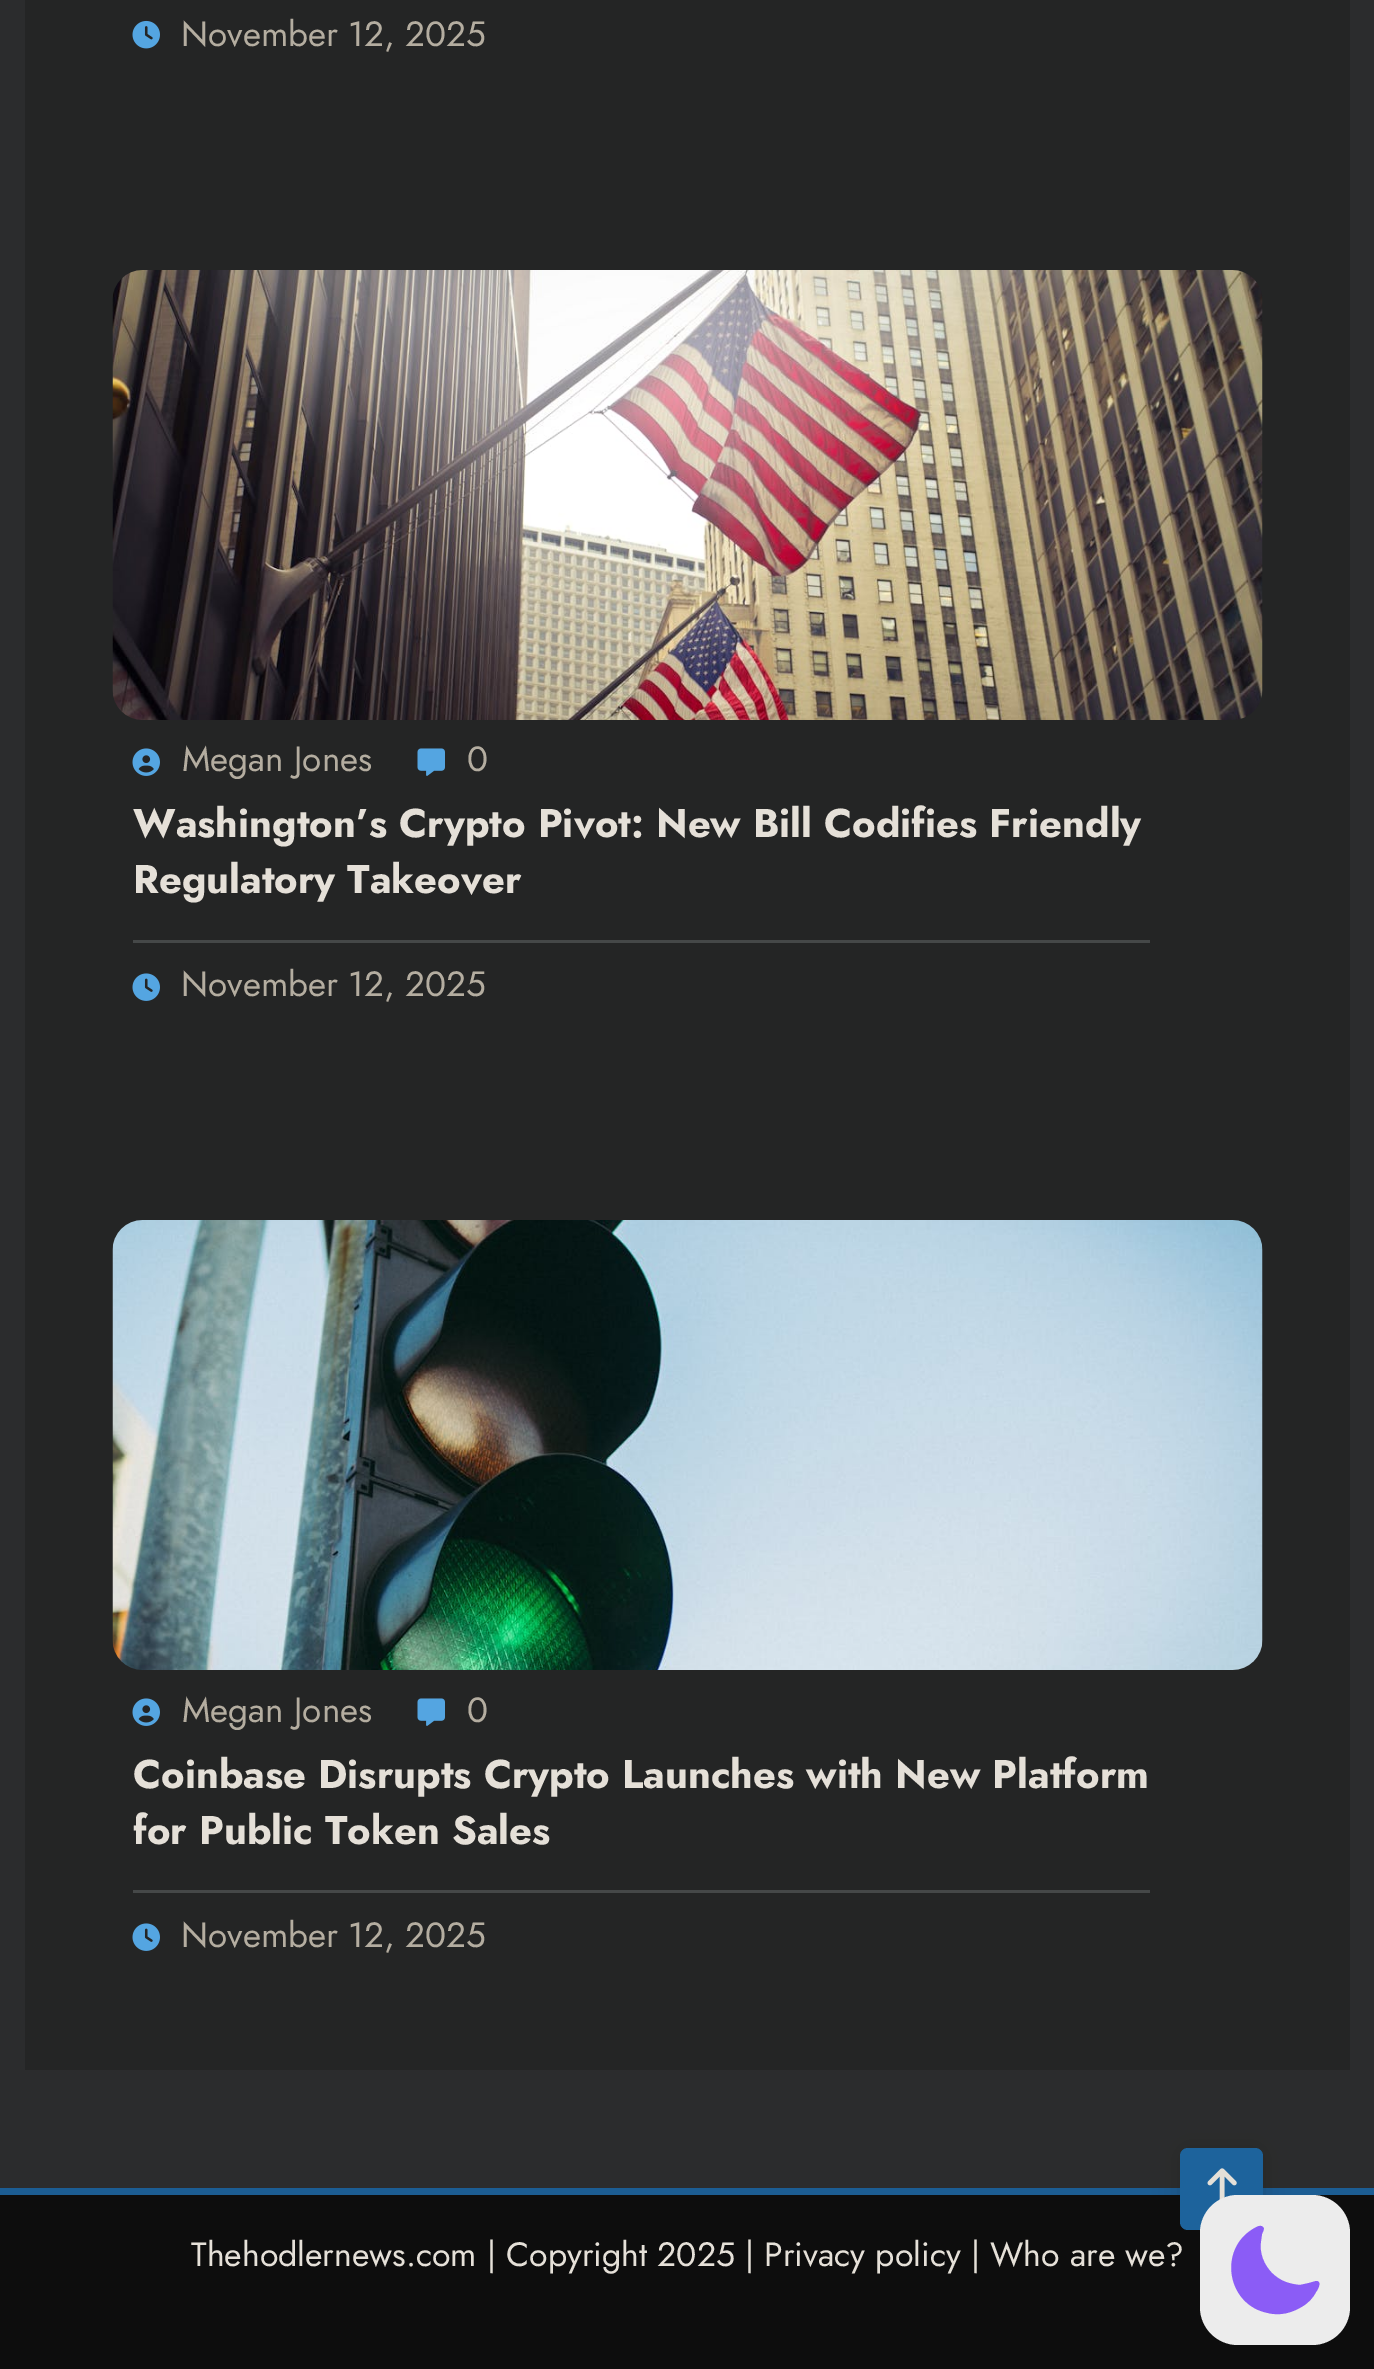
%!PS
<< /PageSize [1374 2369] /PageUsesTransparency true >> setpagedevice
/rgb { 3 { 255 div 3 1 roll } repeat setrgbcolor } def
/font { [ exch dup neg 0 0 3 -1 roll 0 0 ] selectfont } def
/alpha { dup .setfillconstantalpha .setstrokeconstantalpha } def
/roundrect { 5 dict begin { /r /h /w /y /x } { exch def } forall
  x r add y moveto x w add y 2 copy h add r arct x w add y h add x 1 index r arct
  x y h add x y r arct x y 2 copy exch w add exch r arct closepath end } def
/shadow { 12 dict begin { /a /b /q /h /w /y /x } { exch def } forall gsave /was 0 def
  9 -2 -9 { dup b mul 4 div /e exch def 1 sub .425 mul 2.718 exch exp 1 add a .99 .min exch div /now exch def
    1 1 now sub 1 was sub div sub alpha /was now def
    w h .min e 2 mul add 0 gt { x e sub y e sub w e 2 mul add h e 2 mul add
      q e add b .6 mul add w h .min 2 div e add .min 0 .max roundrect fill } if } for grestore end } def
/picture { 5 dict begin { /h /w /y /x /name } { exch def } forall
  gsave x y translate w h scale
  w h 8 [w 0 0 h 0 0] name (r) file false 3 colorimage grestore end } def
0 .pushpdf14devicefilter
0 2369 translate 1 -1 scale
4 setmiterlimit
43 44 45 rgb
0 0 1374 2369 rectfill
36 37 37 rgb
25 0 1325 2070 rectfill
(img/1.rgb) 132 20 28 29 picture
(img/2.rgb) 112 270 1151 450 picture
69 72 72 rgb
133 940 1017 3 rectfill
(img/3.rgb) 132 748 28 28 picture
(img/4.rgb) 417 748 28 28 picture
(img/5.rgb) 132 973 28 28 picture
(img/6.rgb) 112 1220 1151 450 picture
133 1890 1017 3 rectfill
(img/3.rgb) 132 1698 28 28 picture
(img/4.rgb) 417 1698 28 28 picture
(img/5.rgb) 132 1923 28 28 picture
28 93 147 rgb
0 2188 1374 7 rectfill
13 13 13 rgb
0 2195 1374 174 rectfill
1180 2148 83 82 8 12.5 0.2 shadow
29 99 156 rgb
1180 2148 83 82 8 roundrect fill
(img/7.rgb) 1207 2168 30 33 picture
236 236 236 rgb
1200 2195 150 150 38 roundrect fill
139 92 246 rgb
1263 2227 moveto 1265 2229 1263 2231 1262 2234 curveto 1261 2241 lineto 1259 2253 1264 2265 1272 2273 curveto 1280 2281 1289 2284 1300 2285 curveto 1309 2283 lineto 1316 2281 lineto 1323 2281 1317 2291 1316 2292 curveto 1313 2298 1308 2303 1303 2306 curveto 1292 2313 1280 2316 1268 2313 curveto 1227 2305 1218 2250 1253 2229 curveto 1255 2228 1260 2224 1263 2227 curveto closepath eofill
/Jost-Regular 35 font
180 173 160 rgb
[
  [(November 12, 2025) 181 46]
  [(Megan Jones) 182 771]
  [(0) 467 771]
] { aload pop moveto show } forall
/Jost-Bold 40 font
229 224 216 rgb
133 837 moveto (Washington’s Crypto Pivot: New Bill Codifies Friendly) show
133 893 moveto (Regulatory Takeover) show
/Jost-Regular 35 font
180 173 160 rgb
[
  [(November 12, 2025) 181 996]
  [(Megan Jones) 182 1722]
  [(0) 467 1722]
] { aload pop moveto show } forall
/Jost-Bold 40 font
229 224 216 rgb
133 1788 moveto (Coinbase Disrupts Crypto Launches with New Platform) show
133 1844 moveto (for Public Token Sales) show
/Jost-Regular 35 font
180 173 160 rgb
181 1947 moveto (November 12, 2025) show
/Jost-Regular 33.75 font
229 224 216 rgb
191 2266 moveto (Thehodlernews.com | Copyright 2025 | Privacy policy | Who are we?) show
.poppdf14devicefilter showpage
